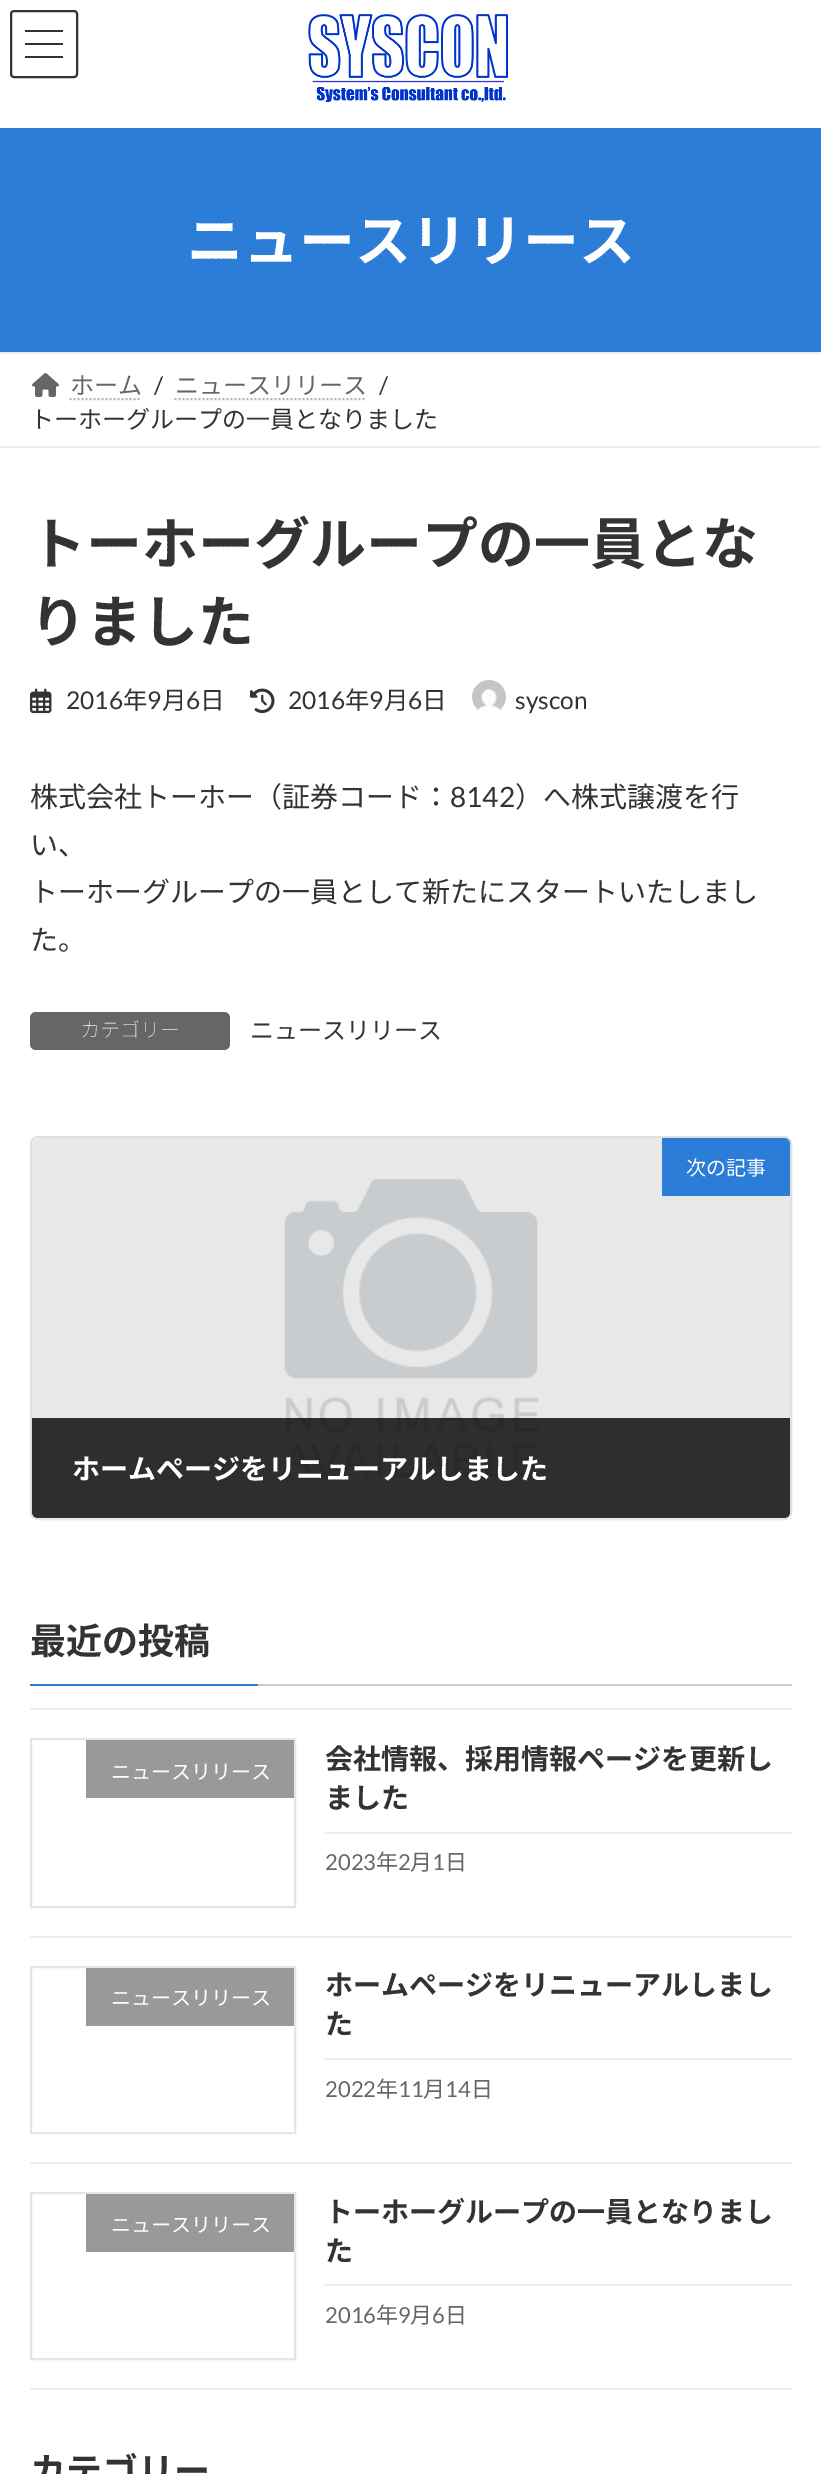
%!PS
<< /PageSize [821 2474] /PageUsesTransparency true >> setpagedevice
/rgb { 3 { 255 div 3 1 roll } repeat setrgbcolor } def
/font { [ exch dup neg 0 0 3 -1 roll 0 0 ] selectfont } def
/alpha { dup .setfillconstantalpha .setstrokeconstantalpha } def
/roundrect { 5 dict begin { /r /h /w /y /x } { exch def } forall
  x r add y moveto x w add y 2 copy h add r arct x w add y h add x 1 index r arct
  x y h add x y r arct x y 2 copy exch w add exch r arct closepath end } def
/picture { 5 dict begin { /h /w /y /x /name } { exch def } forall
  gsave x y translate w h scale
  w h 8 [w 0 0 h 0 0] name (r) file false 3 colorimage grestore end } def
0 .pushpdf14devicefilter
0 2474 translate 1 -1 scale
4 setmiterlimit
255 255 255 rgb
0 0 821 2474 rectfill
[
  [25 30 38 2 51 51 51]
  [25 43 38 2 51 51 51]
  [25 56 38 2 51 51 51]
] { aload pop rgb rectfill } forall
2 setlinewidth
11 11 66 66 3 roundrect stroke
(img/1.rgb) 308 14 200 89 picture
[
  [0 128 821 224 44 125 216]
  [0 352 821 2 240 240 240]
  [0 446 821 2 240 240 240]
] { aload pop rgb rectfill } forall
(img/2.rgb) 32 373 27 24 picture
179 179 179 rgb
[2 2] 0 setdash
69.5 399 moveto 141.5 399 lineto stroke
174.5 399 moveto 366.5 399 lineto stroke
(img/3.rgb) 30 688 22 26 picture
(img/4.rgb) 250 688 25 26 picture
(img/5.rgb) 472 680 34 30 picture
102 102 102 rgb
30 1012 200 38 6 roundrect fill
223 223 223 rgb
[] 0 setdash
31 1137 760 382 7 roundrect stroke
(img/6.rgb) 32 1138 758 382 picture
gsave
32 1138 758 380 6 roundrect clip newpath
229 229 229 rgb
32 1516 758 2 rectfill
grestore
44 125 216 rgb
662 1138 moveto 784 1138 lineto 787.5 1138 790 1140.5 790 1144 curveto 790 1196 lineto 662 1196 lineto closepath fill
0.8 alpha
0 0 0 rgb
32 1418 moveto 790 1418 lineto 790 1512 lineto 790 1515.5 787.5 1518 784 1518 curveto 38 1518 lineto 34.5 1518 32 1515.5 32 1512 curveto closepath fill
1 alpha
[
  [258 1684 534 2 204 204 204]
  [30 1684 228 2 44 125 216]
  [30 1708 762 2 240 240 240]
  [30 1936 762 2 240 240 240]
] { aload pop rgb rectfill } forall
229 229 229 rgb
31 1739 264 168 rectstroke
[
  [86 1740 208 58 153 153 153]
  [324 1832 468 2 240 240 240]
  [30 2162 762 2 240 240 240]
] { aload pop rgb rectfill } forall
229 229 229 rgb
31 1967 264 166 rectstroke
[
  [86 1968 208 58 153 153 153]
  [324 2058 468 2 240 240 240]
  [30 2388 762 2 240 240 240]
] { aload pop rgb rectfill } forall
229 229 229 rgb
31 2193 264 166 rectstroke
153 153 153 rgb
86 2194 208 58 rectfill
240 240 240 rgb
324 2284 468 2 rectfill
/NotoSansJP-Bold 56 font
255 255 255 rgb
187 261 moveto (ニュースリリース) show
/NotoSansJP-Regular 24 font
102 102 102 rgb
70 394 moveto (ホーム) show
/Lato-Regular 24 font
51 51 51 rgb
154 394 moveto (/) show
/NotoSansJP-Regular 24 font
102 102 102 rgb
175 394 moveto (ニュースリリース) show
/Lato-Regular 24 font
51 51 51 rgb
379 394 moveto (/) show
/NotoSansJP-Regular 24 font
30 428 moveto (トーホーグループの一員となりました) show
/NotoSansJP-Bold 56 font
30 564 moveto (トーホーグループの一員とな) show
30 642 moveto (りました) show
/Lato-Regular 24.5 font
66 709 moveto (2016) show
/NotoSansJP-Regular 24.5 font
123 709 moveto (年) show
/Lato-Regular 24.5 font
147 709 moveto (9) show
/NotoSansJP-Regular 24.5 font
162 709 moveto (月) show
/Lato-Regular 24.5 font
186 709 moveto (6) show
/NotoSansJP-Regular 24.5 font
200 709 moveto (日) show
/Lato-Regular 24.5 font
288 709 moveto (2016) show
/NotoSansJP-Regular 24.5 font
345 709 moveto (年) show
/Lato-Regular 24.5 font
369 709 moveto (9) show
/NotoSansJP-Regular 24.5 font
384 709 moveto (月) show
/Lato-Regular 24.5 font
408 709 moveto (6) show
/NotoSansJP-Regular 24.5 font
422 709 moveto (日) show
/Lato-Regular 24.5 font
515 709 moveto (syscon) show
/NotoSansJP-Regular 28 font
30 807 moveto (株式会社トーホー（証券コード：) show
/Lato-Regular 28 font
450 807 moveto (8142) show
/NotoSansJP-Regular 28 font
[
  [(）へ株式譲渡を行) 515 807]
  [(い、) 30 855]
  [(トーホーグループの一員として新たにスタートいたしまし) 30 902]
  [(た。) 30 950]
] { aload pop moveto show } forall
/NotoSansJP-Thin 20 font
255 255 255 rgb
80 1037 moveto (カテゴリー) show
/NotoSansJP-Regular 24 font
51 51 51 rgb
250 1039 moveto (ニュースリリース) show
/NotoSansJP-Regular 20 font
255 255 255 rgb
686 1175 moveto (次の記事) show
/NotoSansJP-Bold 28 font
72 1479 moveto (ホームページをリニューアルしました) show
/NotoSansJP-Bold 36 font
51 51 51 rgb
30 1654 moveto (最近の投稿) show
/NotoSansJP-Regular 20 font
255 255 255 rgb
111 1779 moveto (ニュースリリース) show
/NotoSansJP-Bold 28 font
51 51 51 rgb
325 1769 moveto (会社情報、採用情報ページを更新し) show
325 1808 moveto (ました) show
/Lato-Regular 22 font
102 102 102 rgb
325 1870 moveto (2023) show
/NotoSansJP-Regular 22 font
376 1870 moveto (年) show
/Lato-Regular 22 font
398 1870 moveto (2) show
/NotoSansJP-Regular 22 font
410 1870 moveto (月) show
/Lato-Regular 22 font
432 1870 moveto (1) show
/NotoSansJP-Regular 22 font
445 1870 moveto (日) show
/NotoSansJP-Regular 20 font
255 255 255 rgb
111 2005 moveto (ニュースリリース) show
/NotoSansJP-Bold 28 font
51 51 51 rgb
325 1995 moveto (ホームページをリニューアルしまし) show
325 2034 moveto (た) show
/Lato-Regular 22 font
102 102 102 rgb
325 2097 moveto (2022) show
/NotoSansJP-Regular 22 font
376 2097 moveto (年) show
/Lato-Regular 22 font
398 2097 moveto (11) show
/NotoSansJP-Regular 22 font
423 2097 moveto (月) show
/Lato-Regular 22 font
445 2097 moveto (14) show
/NotoSansJP-Regular 22 font
471 2097 moveto (日) show
/NotoSansJP-Regular 20 font
255 255 255 rgb
111 2232 moveto (ニュースリリース) show
/NotoSansJP-Bold 28 font
51 51 51 rgb
325 2222 moveto (トーホーグループの一員となりまし) show
325 2261 moveto (た) show
/Lato-Regular 22 font
102 102 102 rgb
325 2323 moveto (2016) show
/NotoSansJP-Regular 22 font
376 2323 moveto (年) show
/Lato-Regular 22 font
398 2323 moveto (9) show
/NotoSansJP-Regular 22 font
410 2323 moveto (月) show
/Lato-Regular 22 font
432 2323 moveto (6) show
/NotoSansJP-Regular 22 font
445 2323 moveto (日) show
/NotoSansJP-Bold 36 font
51 51 51 rgb
30 2484 moveto (カテゴリー) show
.poppdf14devicefilter showpage
